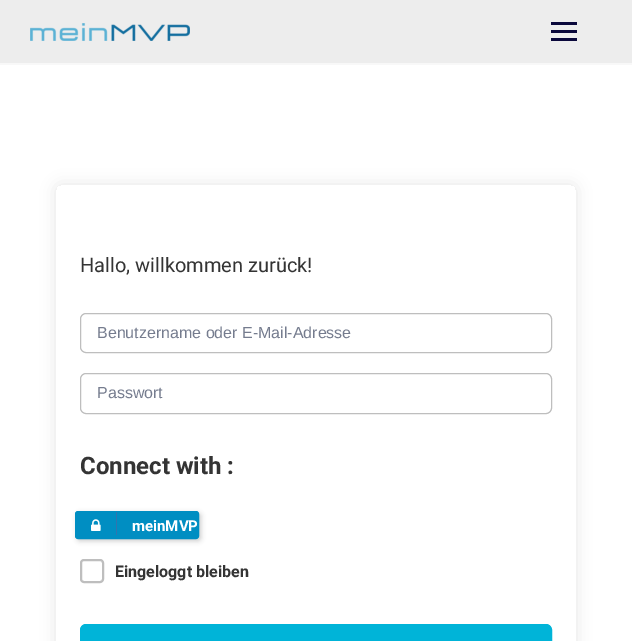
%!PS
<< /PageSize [632 641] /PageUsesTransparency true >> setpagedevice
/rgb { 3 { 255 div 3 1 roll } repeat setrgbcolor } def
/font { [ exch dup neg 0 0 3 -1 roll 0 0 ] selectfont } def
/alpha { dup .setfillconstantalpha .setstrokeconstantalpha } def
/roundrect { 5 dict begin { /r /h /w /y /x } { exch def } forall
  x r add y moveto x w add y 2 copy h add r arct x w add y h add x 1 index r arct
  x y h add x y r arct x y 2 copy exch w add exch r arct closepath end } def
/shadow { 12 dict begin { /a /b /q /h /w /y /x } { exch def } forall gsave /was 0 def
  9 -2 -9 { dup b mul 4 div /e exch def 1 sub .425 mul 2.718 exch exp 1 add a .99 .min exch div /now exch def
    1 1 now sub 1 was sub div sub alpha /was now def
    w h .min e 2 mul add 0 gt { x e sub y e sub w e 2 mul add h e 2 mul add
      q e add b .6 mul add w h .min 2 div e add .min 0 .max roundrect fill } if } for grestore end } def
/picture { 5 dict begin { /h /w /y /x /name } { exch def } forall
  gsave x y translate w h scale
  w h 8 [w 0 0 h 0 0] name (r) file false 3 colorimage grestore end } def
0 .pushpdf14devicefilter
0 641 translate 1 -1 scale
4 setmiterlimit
255 255 255 rgb
0 0 632 641 rectfill
237 237 237 rgb
0 0 632 63 rectfill
248 248 248 rgb
0 63 632 2 rectfill
(img/1.rgb) 30 23 160 18 picture
[
  [551 30 26 3 10 8 59]
  [551 22 26 3 10 8 59]
  [551 38 26 3 10 8 59]
] { aload pop rgb rectfill } forall
gsave
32 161 moveto 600 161 lineto 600 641 lineto 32 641 lineto closepath 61 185 moveto 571 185 lineto 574 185 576 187 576 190 curveto 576 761 lineto 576 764 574 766 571 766 curveto 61 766 lineto 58 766 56 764 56 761 curveto 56 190 lineto 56 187 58 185 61 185 curveto closepath eoclip newpath
0 0 0 rgb
56 185 520 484 5 7.5 0.1 shadow
grestore
190 190 190 rgb
80.5 313.5 471 39 5.5 roundrect stroke
80.5 373.5 471 40 5.5 roundrect stroke
204 204 204 rgb
77 513 124 28 3 2.5 1 shadow
0 142 194 rgb
75.5 511.5 123 27 2.5 roundrect gsave fill grestore
stroke
50 116 173 rgb
116 512 1 23 rectfill
(img/2.rgb) 91 519 10 12 picture
190 190 190 rgb
2 setlinewidth
81 560 22 22 3 roundrect stroke
0 180 216 rgb
80.5 624.5 471 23 5.5 roundrect gsave fill grestore
1 setlinewidth
stroke
/Roboto-Regular 20 font
52 52 52 rgb
80 272 moveto (Hallo, willkommen zurück!) show
/LiberationSans-Regular 16 font
117 124 142 rgb
97 338 moveto (Benutzername oder E-Mail-Adresse) show
97 398 moveto (Passwort) show
/Roboto-Bold 24 font
52 52 52 rgb
80 474 moveto (Connect with :) show
/Roboto-Bold 15 font
255 255 255 rgb
132 531 moveto (meinMVP) show
/Roboto-Bold 16 font
52 52 52 rgb
115 577 moveto (Eingeloggt bleiben) show
.poppdf14devicefilter showpage
